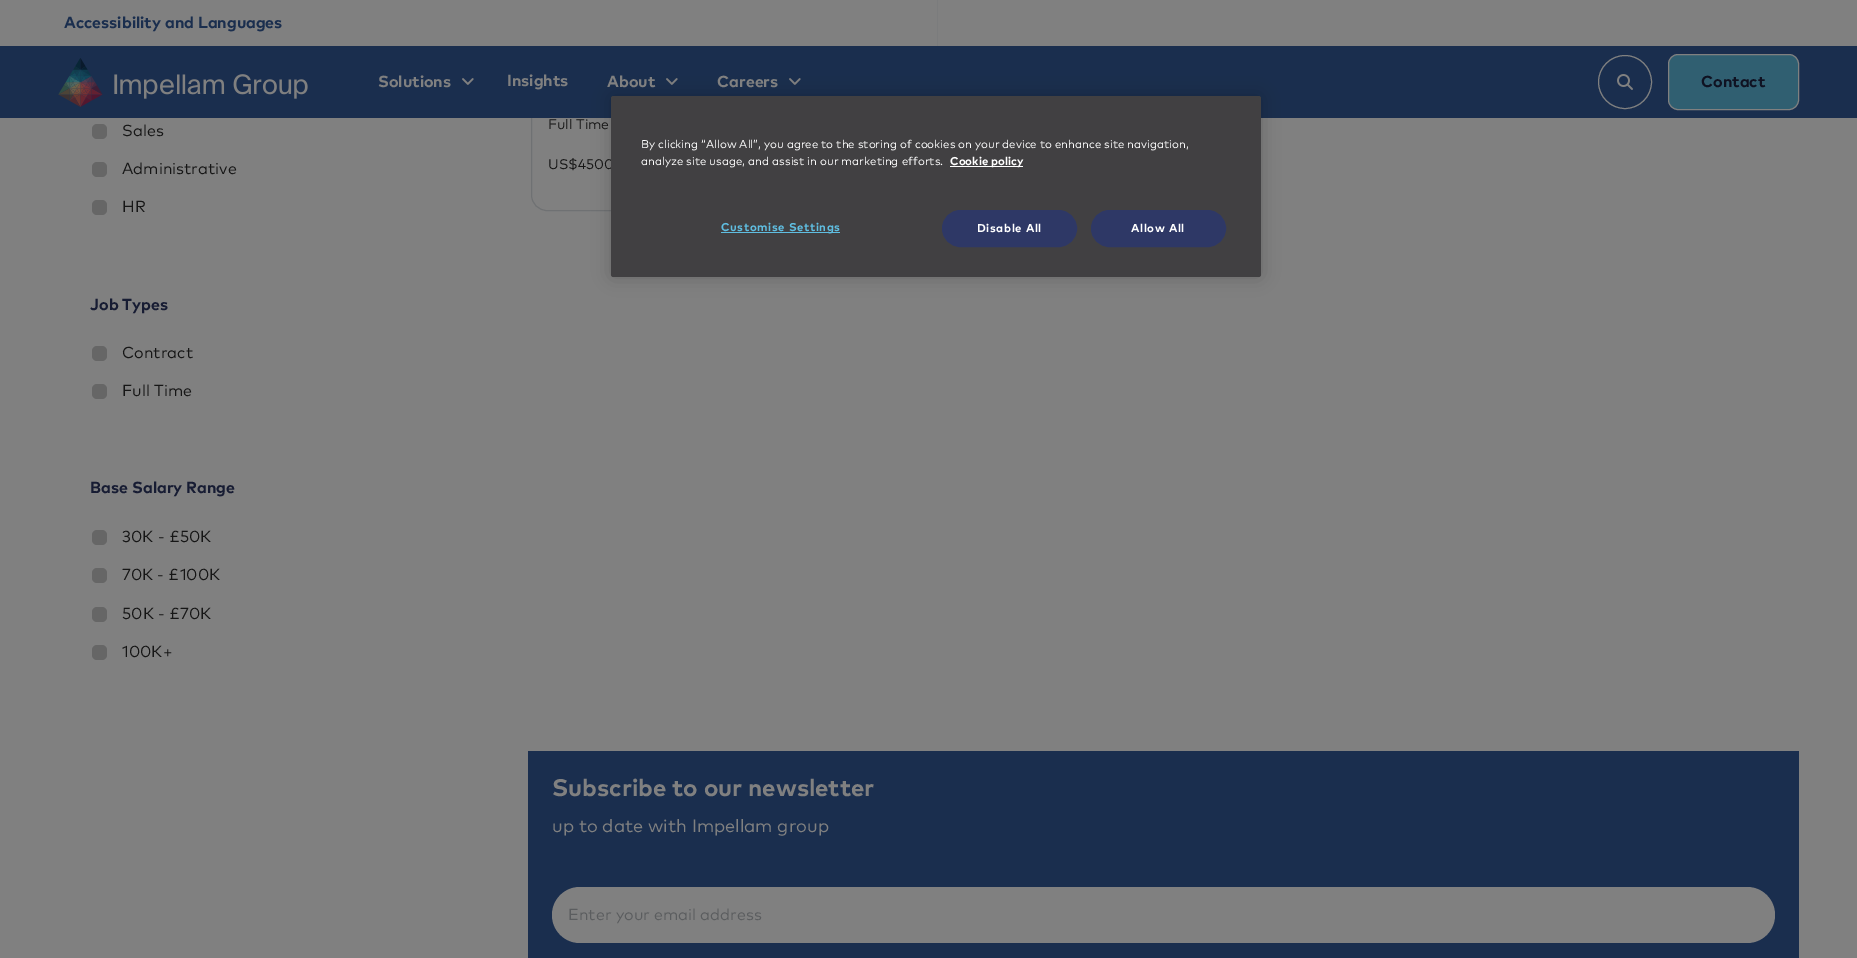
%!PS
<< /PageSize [1857 958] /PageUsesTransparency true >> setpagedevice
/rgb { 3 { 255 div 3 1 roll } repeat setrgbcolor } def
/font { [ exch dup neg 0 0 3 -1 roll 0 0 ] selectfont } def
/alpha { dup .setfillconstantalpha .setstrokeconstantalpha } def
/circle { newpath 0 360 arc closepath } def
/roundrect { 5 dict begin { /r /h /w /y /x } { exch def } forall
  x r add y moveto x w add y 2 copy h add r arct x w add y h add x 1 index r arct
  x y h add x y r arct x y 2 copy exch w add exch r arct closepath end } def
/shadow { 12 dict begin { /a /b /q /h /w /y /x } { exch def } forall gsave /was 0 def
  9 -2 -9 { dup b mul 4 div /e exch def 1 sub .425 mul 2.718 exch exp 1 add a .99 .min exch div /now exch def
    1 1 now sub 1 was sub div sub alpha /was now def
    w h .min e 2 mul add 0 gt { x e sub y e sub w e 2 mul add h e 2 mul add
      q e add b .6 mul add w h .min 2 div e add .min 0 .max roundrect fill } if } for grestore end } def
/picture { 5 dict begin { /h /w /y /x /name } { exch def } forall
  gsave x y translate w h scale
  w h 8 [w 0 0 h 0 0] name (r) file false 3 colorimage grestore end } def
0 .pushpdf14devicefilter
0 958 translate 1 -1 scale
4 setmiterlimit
128 128 128 rgb
0 0 1857 958 rectfill
111 113 115 rgb
531.5 -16.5 405 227 15.5 roundrect stroke
128 128 128 rgb
531 0 406 46 rectfill
26 46 78 rgb
0 46 1857 72 rectfill
(img/1.rgb) 58 58 250 49 picture
(img/2.rgb) 462 78 12 7 picture
(img/2.rgb) 666 78 12 7 picture
(img/2.rgb) 789 78 12 7 picture
128 128 128 rgb
1625 82 26.5 circle stroke
(img/3.rgb) 1617 74 16 16 picture
48 95 113 rgb
1668.5 54.5 130 55 9.5 roundrect gsave fill grestore
128 128 128 rgb
stroke
102 102 102 rgb
92 124 15 15 5 roundrect fill
92 162 15 15 5 roundrect fill
92 200 15 15 5 roundrect fill
92 346 15 15 5 roundrect fill
92 384 15 15 5 roundrect fill
92 530 15 15 5 roundrect fill
92 568 15 15 5 roundrect fill
92 607 15 15 5 roundrect fill
92 645 15 15 5 roundrect fill
26 46 78 rgb
528 751 1271 207 rectfill
128 128 128 rgb
552 887 1223 56 28 roundrect fill
0 0 0 rgb
611 96 650 181 2.5 9 0.2 shadow
/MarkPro-Bold 16 font
26 46 78 rgb
64 28 moveto (Accessibility and Languages) show
128 128 128 rgb
[
  [(Solutions) 378 87]
  [(Insights) 507 86]
  [(About) 607 87]
  [(Careers) 717 87]
] { aload pop moveto show } forall
15 18 34 rgb
1701 87 moveto (Contact) show
/MarkPro-Regular 16 font
22 22 22 rgb
[
  [(Sales) 122 136]
  [(Administrative) 122 174]
  [(HR) 122 212]
] { aload pop moveto show } forall
/MarkPro-Bold 16 font
23 28 51 rgb
90 310 moveto (Job Types) show
/MarkPro-Regular 16 font
22 22 22 rgb
122 358 moveto (Contract) show
122 396 moveto (Full Time) show
/MarkPro-Bold 16 font
23 28 51 rgb
90 493 moveto (Base Salary Range) show
/MarkPro-Regular 16 font
22 22 22 rgb
[
  [(30K - £50K) 122 542]
  [(70K - £100K) 122 580]
  [(50K - £70K) 122 619]
  [(100K+) 122 657]
] { aload pop moveto show } forall
/MarkPro-Regular 14 font
548 129 moveto (Full Time) show
548 169 moveto (US$4500) show
/MarkPro-Bold 24 font
128 128 128 rgb
552 796 moveto (Subscribe to our newsletter) show
/MarkPro-Regular 18 font
552 832 moveto (up to date with Impellam group) show
/MarkPro-Regular 16 font
91 93 95 rgb
568 920 moveto (Enter your email address) show
65 64 66 rgb
611 96 650 181 2.5 roundrect fill
/MarkPro-Regular 11.4 font
255 255 255 rgb
641 148 moveto (By clicking “Allow All”, you agree to the storing of cookies on your device to enhance site navigation,) show
641 165 moveto (analyze site usage, and assist in our marketing efforts.) show
950 166 73 1 rectfill
/MarkPro-Bold 11.4 font
950 165 moveto (Cookie policy) show
95 190 225 rgb
721 232 119 1 rectfill
721 231 moveto 0.6 0 (Customise Settings) ashow
46 56 102 rgb
942.5 210.5 134 36 18 roundrect gsave fill grestore
stroke
255 255 255 rgb
977 232 moveto 0.6 0 (Disable All) ashow
46 56 102 rgb
1091.5 210.5 134 36 18 roundrect gsave fill grestore
stroke
255 255 255 rgb
1131 232 moveto 0.6 0 (Allow All) ashow
.poppdf14devicefilter showpage
